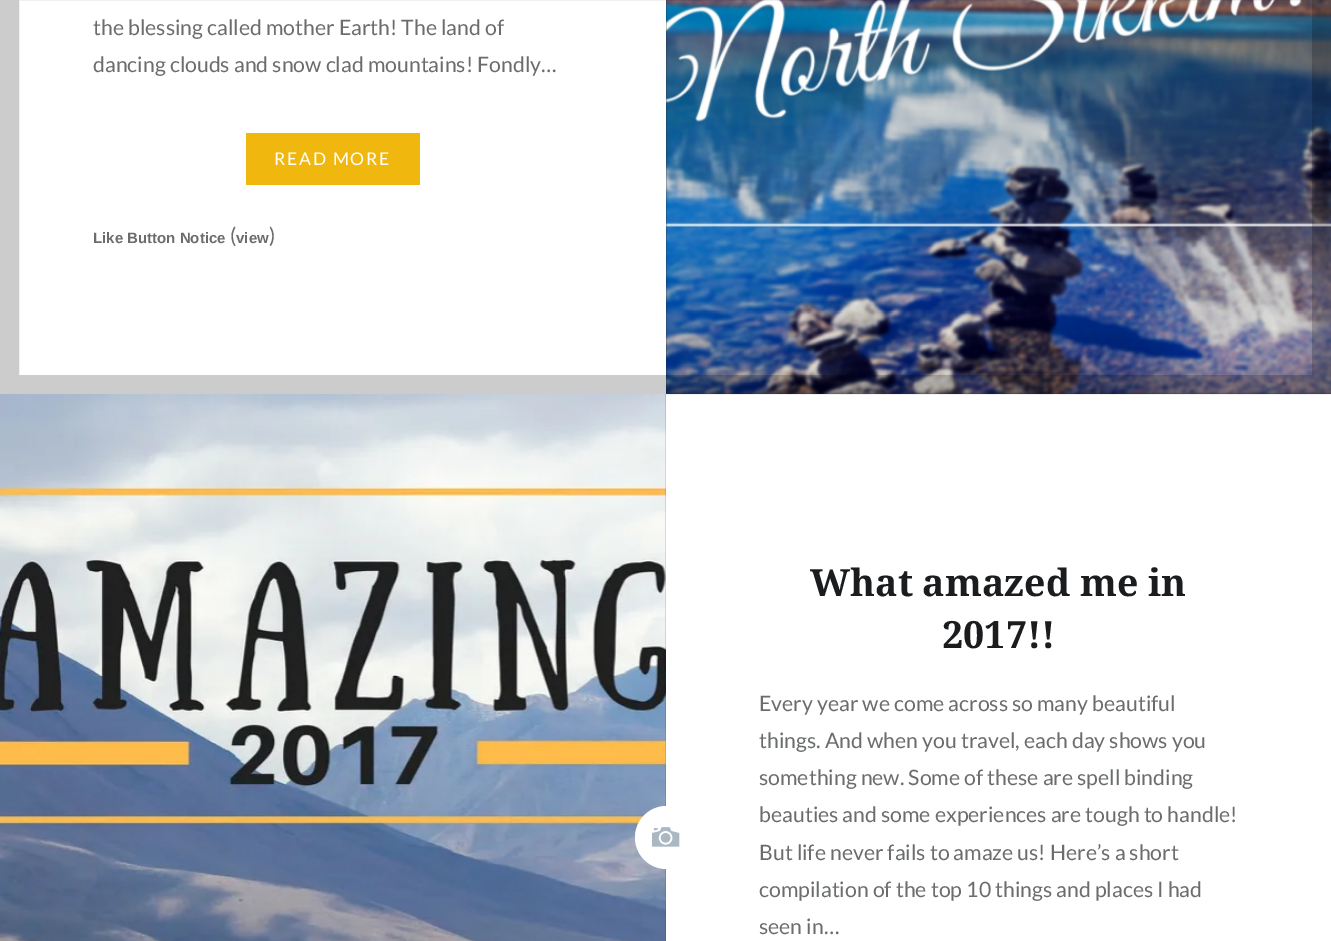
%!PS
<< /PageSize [1331 941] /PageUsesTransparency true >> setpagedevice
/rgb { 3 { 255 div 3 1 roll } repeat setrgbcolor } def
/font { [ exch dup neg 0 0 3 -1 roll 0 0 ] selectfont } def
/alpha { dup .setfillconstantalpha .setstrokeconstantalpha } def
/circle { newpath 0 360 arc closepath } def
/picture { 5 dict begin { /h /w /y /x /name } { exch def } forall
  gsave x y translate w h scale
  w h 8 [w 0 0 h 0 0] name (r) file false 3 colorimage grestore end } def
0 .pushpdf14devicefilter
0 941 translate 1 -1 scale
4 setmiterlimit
255 255 255 rgb
0 0 1331 941 rectfill
240 184 14 rgb
246 133 174 52 rectfill
36 38 41 rgb
666 0 665 394 rectfill
(img/1.rgb) 666 0 665 394 picture
0.2 alpha
0 0 0 rgb
19 setlinewidth
9.5 -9.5 1312 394 rectstroke
1 alpha
(img/2.rgb) 0 394 666 547 picture
255 255 255 rgb
666.5 837.5 31.5 circle fill
(img/3.rgb) 652 827 28 20 picture
/Lato-Regular 21.25 font
106 108 110 rgb
93 35 moveto (the blessing called mother Earth! The land of) show
93 72 moveto (dancing clouds and snow clad mountains! Fondly…) show
/Lato-Regular 17.5 font
255 255 255 rgb
274 165 moveto 1.75 0 (READ MORE) ashow
/LiberationSans-Bold 15 font
106 108 110 rgb
93 243 moveto (Like Button Notice) show
/Lato-Regular 21.25 font
230 243 moveto (\() show
/LiberationSans-Bold 15 font
236 243 moveto (view) show
/Lato-Regular 21.25 font
269 243 moveto (\)) show
/NotoSerif-Bold 37.5 font
26 28 30 rgb
810 596 moveto (What amazed me in) show
942 648 moveto (2017!!) show
/Lato-Regular 21.25 font
106 108 110 rgb
[
  [(Every year we come across so many beautiful) 759 711]
  [(things. And when you travel, each day shows you) 759 748]
  [(something new. Some of these are spell binding) 759 785]
  [(beauties and some experiences are tough to handle!) 759 822]
  [(But life never fails to amaze us! Here’s a short) 759 860]
  [(compilation of the top 10 things and places I had) 759 897]
  [(seen in…) 759 934]
] { aload pop moveto show } forall
.poppdf14devicefilter showpage
